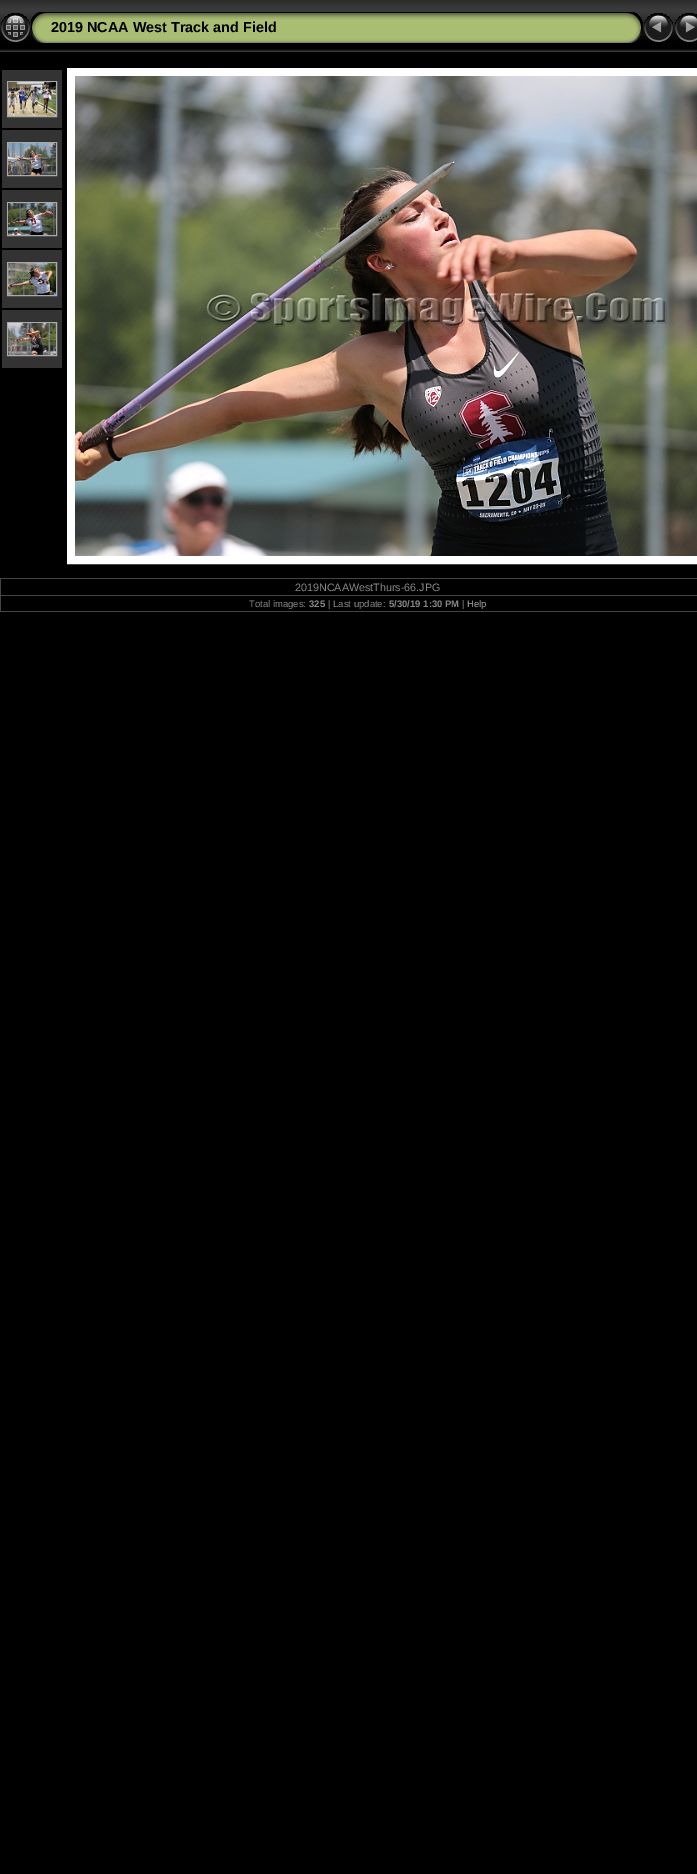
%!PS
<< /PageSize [697 1874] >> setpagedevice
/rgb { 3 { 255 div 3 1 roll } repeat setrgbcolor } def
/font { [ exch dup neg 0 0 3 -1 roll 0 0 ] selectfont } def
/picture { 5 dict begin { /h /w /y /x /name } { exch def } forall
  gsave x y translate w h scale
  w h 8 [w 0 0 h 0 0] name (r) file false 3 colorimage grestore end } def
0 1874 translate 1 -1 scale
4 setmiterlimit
0 0 0 rgb
0 0 697 1874 rectfill
(img/1.rgb) 0 0 697 52 picture
(img/2.rgb) 1 13 29 29 picture
(img/3.rgb) 31 12 20 31 picture
(img/4.rgb) 51 12 572 31 picture
(img/5.rgb) 623 12 20 31 picture
(img/6.rgb) 644 13 29 29 picture
(img/7.rgb) 675 13 22 29 picture
51 51 51 rgb
2 70 60 58 rectfill
170 170 170 rgb
7.5 81.5 49 35 rectstroke
(img/8.rgb) 8 82 48 34 picture
51 51 51 rgb
2 130 60 58 rectfill
170 170 170 rgb
7.5 142.5 49 33 rectstroke
(img/9.rgb) 8 143 48 32 picture
51 51 51 rgb
2 190 60 58 rectfill
170 170 170 rgb
7.5 202.5 49 33 rectstroke
(img/10.rgb) 8 203 48 32 picture
51 51 51 rgb
2 250 60 58 rectfill
170 170 170 rgb
7.5 262.5 49 33 rectstroke
(img/11.rgb) 8 263 48 32 picture
51 51 51 rgb
2 310 60 58 rectfill
170 170 170 rgb
7.5 322.5 49 33 rectstroke
(img/12.rgb) 8 323 48 32 picture
255 255 255 rgb
8 setlinewidth
71 72 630 488 rectstroke
(img/13.rgb) 75 76 622 480 picture
[
  [0 578 697 1 68 68 68]
  [0 611 697 1 68 68 68]
  [0 578 1 34 68 68 68]
  [0 595 697 1 68 68 68]
] { aload pop rgb rectfill } forall
/LiberationSans-Bold 14.4 font
0 0 0 rgb
51 32 moveto (2019 NCAA West Track and Field) show
/LiberationSans-Regular 10.75 font
136 136 136 rgb
295 591 moveto (2019NCAAWestThurs-66.JPG) show
/LiberationSans-Regular 9.5 font
249 607 moveto (Total images:) show
/LiberationSans-Bold 9.5 font
309 607 moveto (325) show
/LiberationSans-Regular 9.5 font
328 607 moveto (| Last update:) show
/LiberationSans-Bold 9.5 font
389 607 moveto (5/30/19 1:30 PM) show
/LiberationSans-Regular 9.5 font
462 607 moveto (|) show
170 170 170 rgb
467 607 moveto (Help) show
showpage
